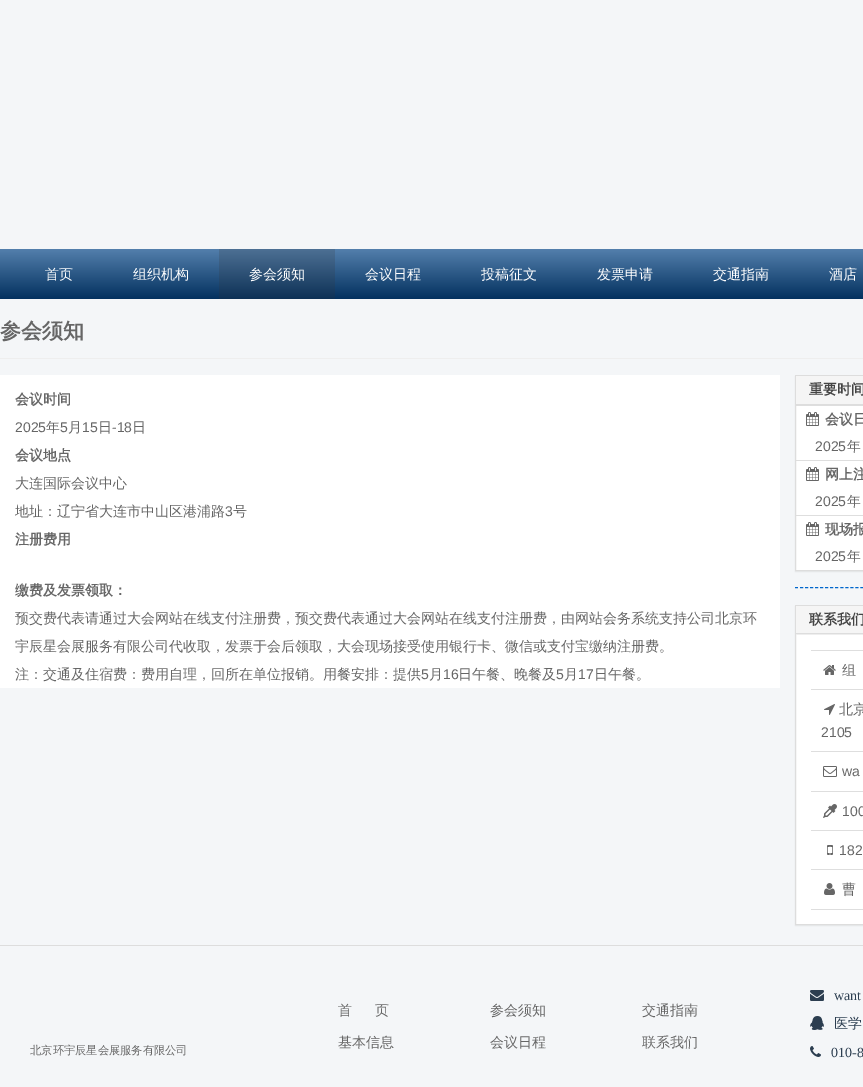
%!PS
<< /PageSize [863 1087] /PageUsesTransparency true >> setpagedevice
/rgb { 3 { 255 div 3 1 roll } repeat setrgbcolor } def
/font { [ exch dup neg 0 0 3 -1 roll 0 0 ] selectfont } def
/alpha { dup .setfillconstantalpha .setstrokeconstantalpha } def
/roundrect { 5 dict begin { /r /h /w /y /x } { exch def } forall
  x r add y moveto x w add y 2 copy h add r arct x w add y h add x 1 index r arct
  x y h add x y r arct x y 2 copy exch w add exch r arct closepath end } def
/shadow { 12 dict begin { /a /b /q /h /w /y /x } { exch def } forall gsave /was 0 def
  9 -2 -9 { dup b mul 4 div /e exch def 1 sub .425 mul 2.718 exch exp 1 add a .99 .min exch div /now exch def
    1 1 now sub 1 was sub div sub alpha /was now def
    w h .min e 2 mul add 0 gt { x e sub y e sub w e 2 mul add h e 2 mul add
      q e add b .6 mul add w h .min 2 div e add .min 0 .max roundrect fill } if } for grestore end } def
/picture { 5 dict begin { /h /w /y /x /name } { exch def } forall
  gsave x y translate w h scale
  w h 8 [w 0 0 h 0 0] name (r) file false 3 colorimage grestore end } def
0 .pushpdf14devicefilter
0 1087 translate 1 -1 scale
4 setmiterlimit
244 246 248 rgb
0 0 863 1087 rectfill
gsave 0 249 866 50 3 roundrect clip newpath
<< /ShadingType 2 /ColorSpace /DeviceRGB /Coords [585 249 585 299] /Extend [true true] /Function << /FunctionType 2 /Domain [0 1] /C0 [0.325 0.498 0.675] /C1 [0.012 0.192 0.373] /N 1 >> >> shfill grestore
gsave 219 249 moveto 335 249 lineto 335 299 lineto 219 299 lineto closepath clip newpath
<< /ShadingType 2 /ColorSpace /DeviceRGB /Coords [585 249 585 299] /Extend [true true] /Function << /FunctionType 2 /Domain [0 1] /C0 [0.302 0.439 0.58] /C1 [0.051 0.192 0.337] /N 1 >> >> shfill grestore
238 238 238 rgb
0 358 863 1 rectfill
255 255 255 rgb
0 375 780 313 rectfill
0 0 0 rgb
795 376 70 196 0 0.5 0.05 shadow
255 255 255 rgb
796 406 67 164 rectfill
221 221 221 rgb
795.5 375.5 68 195 rectstroke
[
  [796 376 67 28 245 245 245]
  [796 404 67 1 221 221 221]
  [796 405 67 1 222 222 222]
  [796 460 67 1 222 222 222]
] { aload pop rgb rectfill } forall
(img/1.rgb) 806 412 13 14 picture
796 515 67 1 rectfill
(img/1.rgb) 806 467 13 14 picture
(img/1.rgb) 806 522 13 14 picture
0 102 204 rgb
[3 2.03] 0 setdash
795 587.5 moveto 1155 587.5 lineto stroke
0 0 0 rgb
795 606 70 320 0 0.5 0.05 shadow
255 255 255 rgb
796 635 67 289 rectfill
221 221 221 rgb
[] 0 setdash
795.5 605.5 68 319 rectstroke
[
  [796 606 67 27 245 245 245]
  [796 633 67 1 221 221 221]
  [796 634 67 1 238 238 238]
  [811 650 52 1 222 222 222]
  [811 689 52 1 222 222 222]
] { aload pop rgb rectfill } forall
(img/2.rgb) 823 665 13 10 picture
811 751 52 1 rectfill
(img/3.rgb) 824 704 11 11 picture
811 791 52 1 rectfill
(img/4.rgb) 823 766 14 11 picture
811 830 52 1 rectfill
(img/5.rgb) 823 804 14 14 picture
811 869 52 1 rectfill
(img/6.rgb) 827 845 6 10 picture
811 909 52 1 rectfill
(img/7.rgb) 824 883 11 12 picture
221 221 221 rgb
0 945 863 1 rectfill
(img/8.rgb) 810 990 14 11 picture
(img/9.rgb) 810 1016 14 14 picture
(img/10.rgb) 810 1046 11 11 picture
/WenQuanYiZenHei-Medium 14 font
255 255 255 rgb
[
  [(首页) 45 279]
  [(组织机构) 133 279]
  [(参会须知) 249 279]
  [(会议日程) 365 279]
  [(投稿征文) 481 279]
  [(发票申请) 597 279]
  [(交通指南) 713 279]
  [(酒店) 829 279]
] { aload pop moveto show } forall
/WenQuanYiZenHei-Bold 21 font
102 102 102 rgb
0 338 moveto (参会须知) show
/WenQuanYiZenHei-Bold 14 font
15 404 moveto (会议时间) show
/LiberationSans-Regular 14 font
15 432 moveto (2025) show
/WenQuanYiZenHei-Medium 14 font
46 432 moveto (年) show
/LiberationSans-Regular 14 font
60 432 moveto (5) show
/WenQuanYiZenHei-Medium 14 font
68 432 moveto (月) show
/LiberationSans-Regular 14 font
82 432 moveto (15) show
/WenQuanYiZenHei-Medium 14 font
98 432 moveto (日) show
/LiberationSans-Regular 14 font
112 432 moveto (-18) show
/WenQuanYiZenHei-Medium 14 font
132 432 moveto (日) show
/WenQuanYiZenHei-Bold 14 font
15 460 moveto (会议地点) show
/WenQuanYiZenHei-Medium 14 font
15 488 moveto (大连国际会议中心) show
15 516 moveto (地址：辽宁省大连市中山区港浦路) show
/LiberationSans-Regular 14 font
225 516 moveto (3) show
/WenQuanYiZenHei-Medium 14 font
233 516 moveto (号) show
/WenQuanYiZenHei-Bold 14 font
15 544 moveto (注册费用) show
15 595 moveto (缴费及发票领取：) show
/WenQuanYiZenHei-Medium 14 font
[
  [(预交费代表请通过大会网站在线支付注册费，预交费代表通过大会网站在线支付注册费，由网站会务系统支持公司北京环) 15 623]
  [(宇辰星会展服务有限公司代收取，发票于会后领取，大会现场接受使用银行卡、微信或支付宝缴纳注册费。) 15 651]
  [(注：交通及住宿费：费用自理，回所在单位报销。用餐安排：提供) 15 679]
] { aload pop moveto show } forall
/LiberationSans-Regular 14 font
421 679 moveto (5) show
/WenQuanYiZenHei-Medium 14 font
429 679 moveto (月) show
/LiberationSans-Regular 14 font
443 679 moveto (16) show
/WenQuanYiZenHei-Medium 14 font
458 679 moveto (日午餐、晚餐及) show
/LiberationSans-Regular 14 font
556 679 moveto (5) show
/WenQuanYiZenHei-Medium 14 font
564 679 moveto (月) show
/LiberationSans-Regular 14 font
578 679 moveto (17) show
/WenQuanYiZenHei-Medium 14 font
594 679 moveto (日午餐。) show
/WenQuanYiZenHei-Bold 14 font
68 68 68 rgb
809 394 moveto (重要时间) show
102 102 102 rgb
825 424 moveto (会议日) show
/LiberationSans-Regular 14 font
815 451 moveto (2025) show
/WenQuanYiZenHei-Medium 14 font
847 451 moveto (年) show
/WenQuanYiZenHei-Bold 14 font
825 479 moveto (网上注) show
/LiberationSans-Regular 14 font
815 506 moveto (2025) show
/WenQuanYiZenHei-Medium 14 font
847 506 moveto (年) show
/WenQuanYiZenHei-Bold 14 font
825 534 moveto (现场报) show
/LiberationSans-Regular 14 font
815 561 moveto (2025) show
/WenQuanYiZenHei-Medium 14 font
847 561 moveto (年) show
/WenQuanYiZenHei-Bold 14 font
68 68 68 rgb
809 624 moveto (联系我们) show
/WenQuanYiZenHei-Medium 14 font
102 102 102 rgb
842 675 moveto (组) show
839 714 moveto (北京) show
/LiberationSans-Regular 14 font
[
  [(2105) 821 737]
  [(wa) 842 776]
  [(100) 842 816]
  [(182) 839 855]
] { aload pop moveto show } forall
/WenQuanYiZenHei-Medium 14 font
842 894 moveto (曹) show
/WenQuanYiZenHei-Medium 11.25 font
30 1054 moveto (北京环宇辰星会展服务有限公司) show
/WenQuanYiZenHei-Medium 14 font
[
  [(首) 338 1015]
  [(页) 375 1015]
  [(基本信息) 338 1047]
  [(参会须知) 490 1015]
  [(会议日程) 490 1047]
  [(交通指南) 642 1015]
  [(联系我们) 642 1047]
] { aload pop moveto show } forall
/LiberationSerif-Regular 14 font
44 62 80 rgb
834 1000 moveto (want) show
/WenQuanYiZenHei-Medium 14 font
834 1028 moveto (医学) show
/LiberationSerif-Regular 14 font
831 1057 moveto (010-8) show
.poppdf14devicefilter showpage
